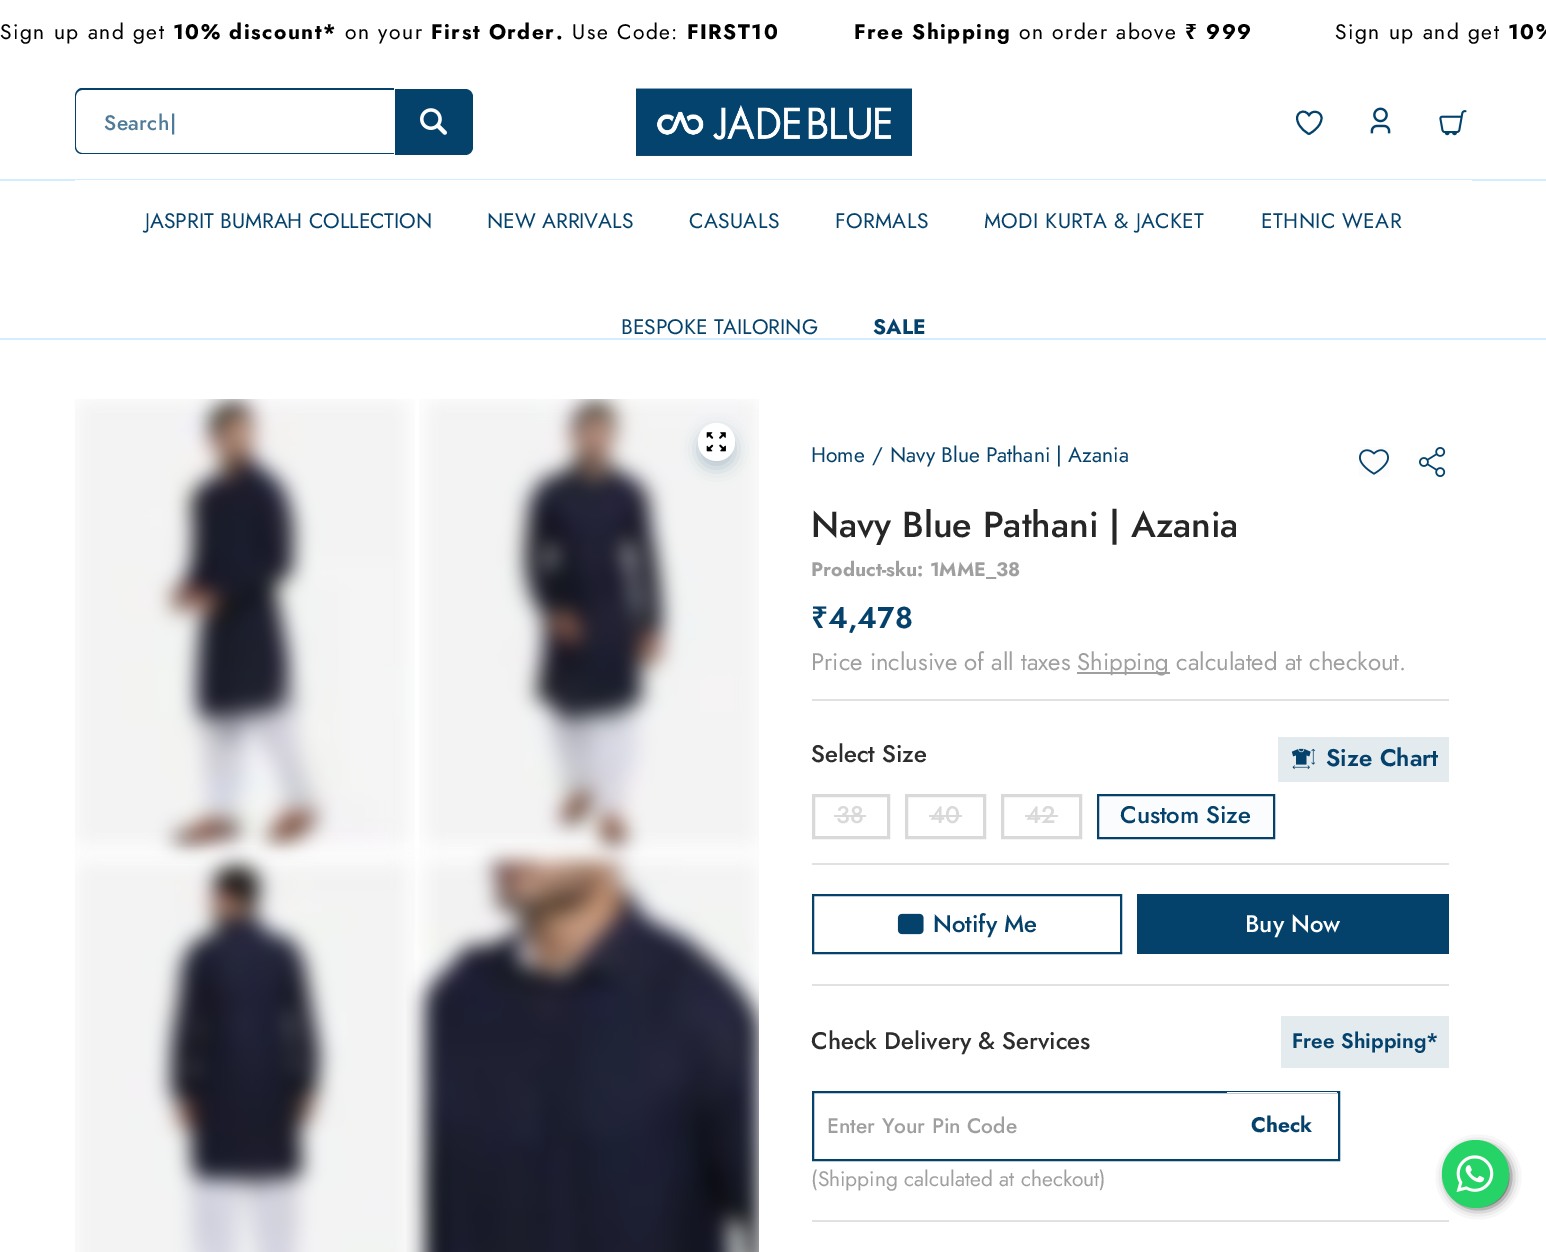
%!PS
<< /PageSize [1546 1252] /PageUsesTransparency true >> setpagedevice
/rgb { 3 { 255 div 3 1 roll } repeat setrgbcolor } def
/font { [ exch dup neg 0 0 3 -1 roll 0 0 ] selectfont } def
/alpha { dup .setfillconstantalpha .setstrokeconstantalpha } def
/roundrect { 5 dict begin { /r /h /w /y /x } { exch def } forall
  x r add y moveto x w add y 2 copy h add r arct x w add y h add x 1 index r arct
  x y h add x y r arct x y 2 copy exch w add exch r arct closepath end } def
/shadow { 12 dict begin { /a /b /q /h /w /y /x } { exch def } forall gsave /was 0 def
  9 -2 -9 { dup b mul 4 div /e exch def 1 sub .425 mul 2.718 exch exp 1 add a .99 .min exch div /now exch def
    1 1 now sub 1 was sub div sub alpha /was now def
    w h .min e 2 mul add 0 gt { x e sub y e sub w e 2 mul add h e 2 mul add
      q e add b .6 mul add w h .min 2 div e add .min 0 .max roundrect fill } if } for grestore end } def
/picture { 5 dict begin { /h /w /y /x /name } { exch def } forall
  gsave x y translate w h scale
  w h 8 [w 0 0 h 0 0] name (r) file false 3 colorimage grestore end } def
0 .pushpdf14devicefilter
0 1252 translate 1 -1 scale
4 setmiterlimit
255 255 255 rgb
0 0 1546 1252 rectfill
210 237 255 rgb
0 179 1546 2 rectfill
4 66 108 rgb
82 88 moveto 394 88 lineto 394 154 lineto 82 154 lineto 78 154 75 151 75 147 curveto 75 96 lineto 75 92 78 88 82 88 curveto closepath 82 90 moveto 394 90 lineto 394 153 lineto 82 153 lineto 79 153 76 150 76 147 curveto 76 96 lineto 76 93 79 90 82 90 curveto closepath eofill
395 89 moveto 465 89 lineto 469.5 89 473 92.5 473 97 curveto 473 147 lineto 473 151.5 469.5 155 465 155 curveto 395 155 lineto closepath fill
(img/1.rgb) 420 108 27 27 picture
(img/2.rgb) 636 88 276 68 picture
2 setlinewidth
1 setlinecap
1 setlinejoin
1321.5 118 moveto 1321.5 111 1311.5 109.5 1309 115.5 curveto 1305.5 107.5 1292 112.5 1299 124.5 curveto 1301 128.5 1305 132 1309 134 curveto 1309 134 1321.5 127.5 1321.5 118 curveto closepath stroke
(img/3.rgb) 1370 107 21 27 picture
(img/4.rgb) 1439 110 28 26 picture
210 237 255 rgb
0 338 1546 2 rectfill
255 255 255 rgb
75 180 1397 1 rectfill
(img/5.rgb) 75 399 340 465 picture
(img/6.rgb) 419 399 340 465 picture
(img/7.rgb) 75 847 340 405 picture
(img/8.rgb) 406 843 353 409 picture
4 66 108 rgb
698 431 37 37 18.5 8 0.25 shadow
255 255 255 rgb
698 423 37 38 18.5 roundrect fill
(img/9.rgb) 706 432 20 20 picture
252 252 252 rgb
1359 447 30 30 rectfill
(img/10.rgb) 1359 449 30 26 picture
(img/11.rgb) 1419 447 27 30 picture
[
  [812 699 637 2 225 225 225]
  [1077 672 93 2 159 159 159]
  [812 863 637 2 225 225 225]
  [1278 737 171 45 228 235 239]
] { aload pop rgb rectfill } forall
(img/12.rgb) 1291 748 25 22 picture
217 217 217 rgb
3 setlinewidth
0 setlinecap
0 setlinejoin
813.5 795.5 75 42 rectstroke
834 815 32 2 rectfill
906.5 795.5 78 42 rectstroke
929 815 33 2 rectfill
1002.5 795.5 78 42 rectstroke
1025 815 33 2 rectfill
251 252 253 rgb
1098 795 moveto 1274 795 lineto 1274 838 lineto 1098 838 lineto closepath gsave fill grestore
4 66 108 rgb
2 setlinewidth
stroke
225 225 225 rgb
812 984 637 2 rectfill
4 66 108 rgb
813 895 308 58 rectstroke
(img/13.rgb) 897 913 27 22 picture
[
  [1137 894 312 60 4 66 108]
  [812 1220 637 2 225 225 225]
  [1281 1016 168 52 228 235 239]
] { aload pop rgb rectfill } forall
4 66 108 rgb
813 1092 526 68 rectstroke
255 255 255 rgb
1227 1092 110 1 rectfill
0 0 0 rgb
1449 1148 59 58 29 6 1 shadow
37 211 102 rgb
1442 1140 67 68 33.5 roundrect fill
(img/14.rgb) 1456 1155 38 38 picture
/Jost-Regular 21 font
0 0 0 rgb
0 39 moveto 1.5 0 (Sign up and get) ashow
/Jost-Bold 21 font
173 39 moveto 1.5 0 (10% discount*) ashow
/Jost-Regular 21 font
345 39 moveto 1.5 0 (on your) ashow
/Jost-Bold 21 font
431 39 moveto 1.5 0 (First Order.) ashow
/Jost-Regular 21 font
572 39 moveto 1.5 0 (Use Code:) ashow
/Jost-Bold 21 font
687 39 moveto 1.5 0 (FIRST10) ashow
854 39 moveto 1.5 0 (Free Shipping) ashow
/Jost-Regular 21 font
1019 39 moveto 1.5 0 (on order above) ashow
/NotoSans-Bold 21 font
1185 39 moveto 1.5 0 (₹) ashow
/Jost-Bold 21 font
1206 39 moveto 1.5 0 (999) ashow
/Jost-Regular 21 font
1335 39 moveto 1.5 0 (Sign up and get) ashow
/Jost-Bold 21 font
1508 39 moveto 1.5 0 (10%) ashow
/Jost-Medium 21 font
79 123 152 rgb
104 130 moveto 0.4 0 (Search|) ashow
/Jost-Regular 21 font
4 66 108 rgb
145 228 moveto (JASPRIT BUMRAH COLLECTION) show
487 228 moveto (NEW ARRIVALS) show
689 228 moveto 0.4 0 (CASUALS) ashow
835 228 moveto 0.4 0 (FORMALS) ashow
984 228 moveto 0.4 0 (MODI KURTA & JACKET) ashow
1261 228 moveto 0.4 0 (ETHNIC WEAR) ashow
621 334 moveto (BESPOKE TAILORING) show
/Jost-Bold 21 font
873 334 moveto (SALE) show
/Jost-Regular 21 font
[
  [(Home) 811 462]
  [(/) 872 462]
  [(Navy Blue Pathani | Azania) 890 462]
] { aload pop moveto show } forall
/Jost-Medium 36 font
38 38 38 rgb
811 537 moveto (Navy Blue Pathani | Azania) show
/Jost-Bold 19.5 font
159 159 159 rgb
811 576 moveto (Product-sku: 1MME_38) show
/NotoSans-SemiBold 30 font
4 66 108 rgb
811 628 moveto (₹) show
/Jost-SemiBold 30 font
828 628 moveto (4,478) show
/Jost-Regular 24 font
159 159 159 rgb
811 670 moveto (Price inclusive of all taxes) show
1077 670 moveto (Shipping calculated at checkout.) show
/Jost-Medium 24 font
45 45 45 rgb
811 762 moveto (Select Size) show
/Jost-SemiBold 24 font
4 66 108 rgb
1326 766 moveto (Size Chart) show
/Jost-Medium 24 font
217 217 217 rgb
[
  [(38) 836 823]
  [(40) 930 823]
  [(42) 1026 823]
] { aload pop moveto show } forall
4 66 108 rgb
1120 823 moveto (Custom Size) show
933 932 moveto (Notify Me) show
255 255 255 rgb
1245 932 moveto (Buy Now) show
45 45 45 rgb
811 1049 moveto (Check Delivery & Services) show
/Jost-SemiBold 21 font
4 66 108 rgb
1292 1048 moveto (Free Shipping*) show
/Jost-Medium 21 font
159 159 159 rgb
827 1133 moveto (Enter Your Pin Code) show
/Jost-Bold 21 font
4 66 108 rgb
1251 1132 moveto (Check) show
/Jost-Regular 21 font
159 159 159 rgb
811 1186 moveto (\(Shipping calculated at checkout\)) show
.poppdf14devicefilter showpage
